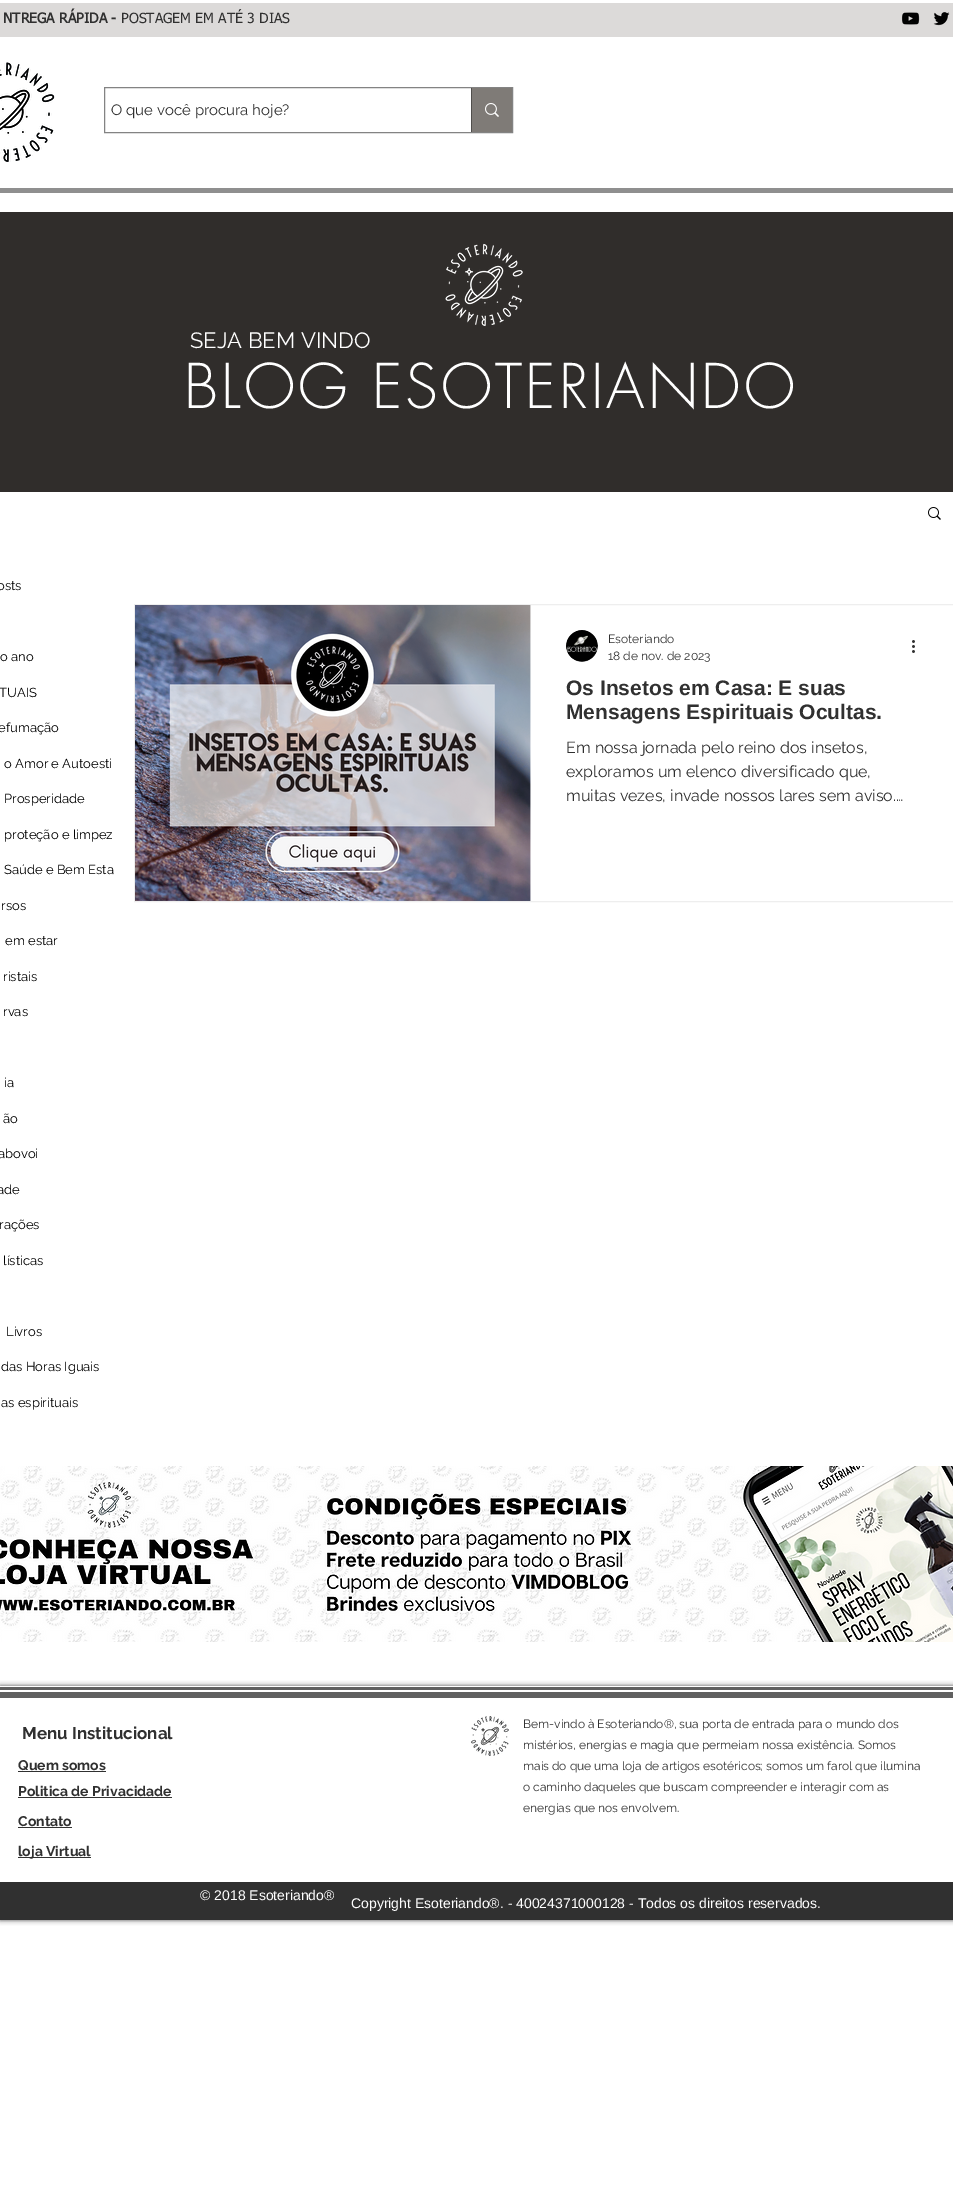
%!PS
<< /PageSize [953 2212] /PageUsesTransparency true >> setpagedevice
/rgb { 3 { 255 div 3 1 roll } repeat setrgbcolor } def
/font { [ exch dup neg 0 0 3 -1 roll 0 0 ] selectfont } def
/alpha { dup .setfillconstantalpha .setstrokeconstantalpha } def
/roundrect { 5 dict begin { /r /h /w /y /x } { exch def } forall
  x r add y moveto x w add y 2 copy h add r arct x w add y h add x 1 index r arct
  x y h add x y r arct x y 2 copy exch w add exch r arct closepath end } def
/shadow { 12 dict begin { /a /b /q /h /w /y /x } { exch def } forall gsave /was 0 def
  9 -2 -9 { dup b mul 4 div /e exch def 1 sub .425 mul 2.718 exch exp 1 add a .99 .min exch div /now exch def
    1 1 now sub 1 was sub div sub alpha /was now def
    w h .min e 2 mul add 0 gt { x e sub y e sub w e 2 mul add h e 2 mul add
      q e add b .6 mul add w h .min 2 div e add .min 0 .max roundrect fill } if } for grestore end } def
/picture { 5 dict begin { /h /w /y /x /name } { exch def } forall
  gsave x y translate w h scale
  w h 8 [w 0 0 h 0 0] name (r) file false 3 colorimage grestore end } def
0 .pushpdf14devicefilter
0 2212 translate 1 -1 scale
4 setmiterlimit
255 255 255 rgb
0 0 953 2212 rectfill
220 218 217 rgb
0 3 953 34 rectfill
(img/1.rgb) 901 12 19 13 picture
(img/2.rgb) 933 12 17 14 picture
(img/3.rgb) 0 62 55 100 picture
(img/4.rgb) 0 62 55 100 picture
131 131 131 rgb
104.5 87.5 408 45 rectstroke
127 123 119 rgb
472 88 40 44 rectfill
80 78 76 rgb
471 88 1 44 rectfill
(img/5.rgb) 485 103 14 14 picture
143 143 143 rgb
0 188 953 5 rectfill
48 45 43 rgb
0 212 953 280 rectfill
(img/6.rgb) 445 243 78 84 picture
(img/7.rgb) 928 507 13 13 picture
238 238 238 rgb
134.5 604.5 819 297 rectstroke
(img/8.rgb) 135 605 396 296 picture
0.57 alpha
255 255 255 rgb
530 605 1 296 rectfill
1 alpha
(img/9.rgb) 566 630 32 32 picture
(img/10.rgb) 912 640 3 13 picture
(img/11.rgb) 0 1466 953 176 picture
gsave
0 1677 moveto 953 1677 lineto 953 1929 lineto 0 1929 lineto closepath 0 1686 moveto 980 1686 lineto 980 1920 lineto 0 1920 lineto closepath eoclip newpath
0 0 0 rgb
0 1686 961 234 0 2.5 0.7 shadow
grestore
96 96 96 rgb
0 1687 953 3 rectfill
0 1692 953 6 rectfill
(img/12.rgb) 471 1716 38 40 picture
[
  [18 1771 88 1 48 48 48]
  [18 1797 154 1 48 48 48]
  [18 1827 54 1 48 48 48]
  [18 1857 73 1 48 48 48]
  [0 1882 953 38 48 48 48]
] { aload pop rgb rectfill } forall
/tahoma-Bold 14 font
3 23 moveto (NTREGA RÁPIDA -) show
/tahoma-Regular 14 font
121 23 moveto (POSTAGEM EM ATÉ 3 DIAS) show
/Raleway-Regular 15 font
111 115 moveto (O que você procura hoje?) show
/Raleway-Regular 22 font
255 255 255 rgb
190 348 moveto (SEJA BEM VINDO) show
/futura-Light 60 font
184 408 moveto 3 0 (BLOG ESOTERIANDO) ashow
/Raleway-Regular 13 font
0 0 0 rgb
[
  [(osts) -3 590]
  [(o ano) 0 661]
  [(TUAIS) -1 697]
  [(efumação) -2 732]
  [(o Amor e Autoesti) 4 768]
  [(Prosperidade) 4 803]
  [(proteção e limpez) 4 839]
  [(Saúde e Bem Esta) 4 874]
  [(rsos) 1 910]
  [(em estar) 5 945]
  [(ristais) 3 981]
  [(rvas) 3 1016]
  [(ia) 4 1087]
  [(ão) 3 1123]
  [(abovoi) -2 1158]
  [(ade) -3 1194]
  [(rações) -1 1229]
  [(lísticas) 3 1265]
  [(Livros) 6 1336]
  [(das Horas Iguais) 1 1371]
  [(as espirituais) 1 1407]
] { aload pop moveto show } forall
/Raleway-Regular 12 font
48 48 48 rgb
608 643 moveto (Esoteriando) show
608 660 moveto (18 de nov. de 2023) show
/LiberationSans-Bold 21 font
566 695 moveto (Os Insetos em Casa: E suas) show
566 719 moveto (Mensagens Espirituais Ocultas.) show
/Raleway-Regular 16 font
[
  [(Em nossa jornada pelo reino dos insetos,) 566 753]
  [(exploramos um elenco diversificado que,) 566 777]
  [(muitas vezes, invade nossos lares sem aviso.…) 566 801]
] { aload pop moveto show } forall
/Raleway-Bold 17 font
22 1739 moveto (Menu Institucional) show
/Raleway-Regular 12 font
[
  [(Bem-vindo à Esoteriando®, sua porta de entrada para o mundo dos) 523 1728]
  [(mistérios, energias e magia que permeiam nossa existência. Somos) 523 1749]
  [(mais do que uma loja de artigos esotéricos; somos um farol que ilumina) 523 1770]
  [(o caminho daqueles que buscam compreender e interagir com as) 523 1791]
  [(energias que nos envolvem.) 523 1812]
] { aload pop moveto show } forall
/Raleway-Bold 14 font
[
  [(Quem somos) 18 1770]
  [(Politica de Privacidade) 18 1796]
  [(Contato) 18 1826]
  [(loja Virtual) 18 1856]
] { aload pop moveto show } forall
/LiberationSans-Regular 14 font
255 255 255 rgb
200 1900 moveto (© 2018 Esoteriando®) show
351 1908 moveto (Copyright Esoteriando®. - 40024371000128 - Todos os direitos reservados.) show
.poppdf14devicefilter showpage
